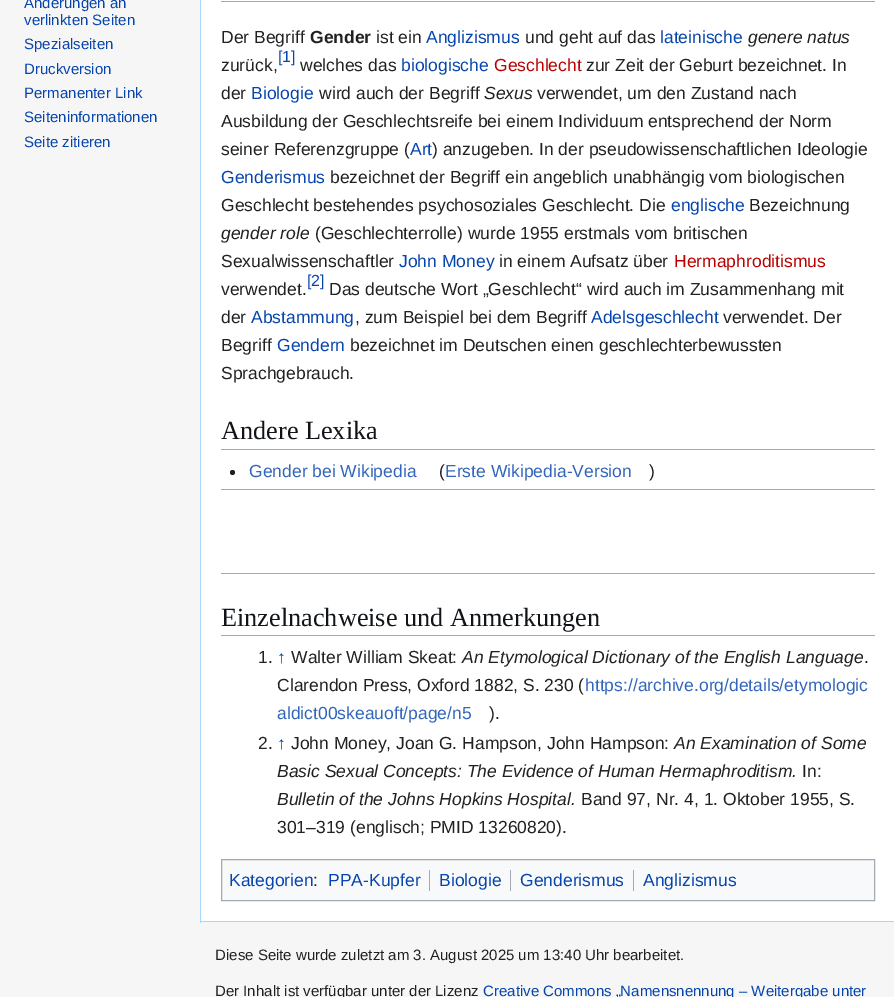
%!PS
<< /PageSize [894 997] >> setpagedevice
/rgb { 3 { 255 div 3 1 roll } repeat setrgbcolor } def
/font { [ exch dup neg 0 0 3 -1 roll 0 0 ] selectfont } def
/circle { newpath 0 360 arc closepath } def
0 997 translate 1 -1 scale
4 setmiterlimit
246 246 246 rgb
0 0 894 997 rectfill
[
  [201 0 693 921 255 255 255]
  [200 921 694 1 167 215 249]
  [200 0 1 923 167 215 249]
  [221 1 654 1 162 169 177]
  [221 449 654 1 162 169 177]
] { aload pop rgb rectfill } forall
32 33 34 rgb
232.5 472.5 2.5 circle fill
[
  [221 489 654 1 162 169 177]
  [221 573 654 1 162 169 177]
  [221 635 654 1 162 169 177]
] { aload pop rgb rectfill } forall
248 249 250 rgb
221.5 859.5 moveto 874.5 859.5 lineto 874.5 900.5 lineto 221.5 900.5 lineto closepath gsave fill grestore
162 169 177 rgb
stroke
[
  [429 870 1 21 162 169 177]
  [510 870 1 21 162 169 177]
  [633 870 1 21 162 169 177]
] { aload pop rgb rectfill } forall
/LiberationSans-Regular 15 font
6 69 173 rgb
[
  [(Änderungen an) 24 8]
  [(verlinkten Seiten) 24 25]
  [(Spezialseiten) 24 49]
  [(Druckversion) 24 74]
  [(Permanenter Link) 24 98]
  [(Seiteninformationen) 24 122]
  [(Seite zitieren) 24 147]
] { aload pop moveto show } forall
/LiberationSans-Regular 17.5 font
32 33 34 rgb
221 43 moveto (Der Begriff) show
/LiberationSans-Bold 17.5 font
310 43 moveto (Gender) show
/LiberationSans-Regular 17.5 font
376 43 moveto (ist ein) show
6 69 173 rgb
426 43 moveto (Anglizismus) show
32 33 34 rgb
525 43 moveto (und geht auf das) show
6 69 173 rgb
660 43 moveto (lateinische) show
/LiberationSans-Italic 17.5 font
32 33 34 rgb
748 43 moveto (genere natus) show
/LiberationSans-Regular 17.5 font
221 71 moveto (zurück,) show
/LiberationSans-Regular 16 font
6 69 173 rgb
278 62 moveto ([1]) show
/LiberationSans-Regular 17.5 font
32 33 34 rgb
300 71 moveto (welches das) show
6 69 173 rgb
401 71 moveto (biologische) show
186 0 0 rgb
494 71 moveto (Geschlecht) show
32 33 34 rgb
586 71 moveto (zur Zeit der Geburt bezeichnet. In) show
221 99 moveto (der) show
6 69 173 rgb
251 99 moveto (Biologie) show
32 33 34 rgb
319 99 moveto (wird auch der Begriff) show
/LiberationSans-Italic 17.5 font
484 99 moveto (Sexus) show
/LiberationSans-Regular 17.5 font
[
  [(verwendet, um den Zustand nach) 537 99]
  [(Ausbildung der Geschlechtsreife bei einem Individuum entsprechend der Norm) 221 127]
  [(seiner Referenzgruppe \() 221 155]
] { aload pop moveto show } forall
6 69 173 rgb
410 155 moveto (Art) show
32 33 34 rgb
432 155 moveto (\) anzugeben. In der pseudowissenschaftlichen Ideologie) show
6 69 173 rgb
221 183 moveto (Genderismus) show
32 33 34 rgb
330 183 moveto (bezeichnet der Begriff ein angeblich unabhängig vom biologischen) show
221 211 moveto (Geschlecht bestehendes psychosoziales Geschlecht. Die) show
6 69 173 rgb
671 211 moveto (englische) show
32 33 34 rgb
749 211 moveto (Bezeichnung) show
/LiberationSans-Italic 17.5 font
221 239 moveto (gender role) show
/LiberationSans-Regular 17.5 font
315 239 moveto (\(Geschlechterrolle\) wurde 1955 erstmals vom britischen) show
221 267 moveto (Sexualwissenschaftler) show
6 69 173 rgb
399 267 moveto (John Money) show
32 33 34 rgb
499 267 moveto (in einem Aufsatz über) show
186 0 0 rgb
674 267 moveto (Hermaphroditismus) show
32 33 34 rgb
221 295 moveto (verwendet.) show
/LiberationSans-Regular 16 font
6 69 173 rgb
307 286 moveto ([2]) show
/LiberationSans-Regular 17.5 font
32 33 34 rgb
329 295 moveto (Das deutsche Wort „Geschlecht“ wird auch im Zusammenhang mit) show
221 323 moveto (der) show
6 69 173 rgb
251 323 moveto (Abstammung) show
32 33 34 rgb
355 323 moveto (, zum Beispiel bei dem Begriff) show
6 69 173 rgb
591 323 moveto (Adelsgeschlecht) show
32 33 34 rgb
723 323 moveto (verwendet. Der) show
221 351 moveto (Begriff) show
6 69 173 rgb
277 351 moveto (Gendern) show
32 33 34 rgb
350 351 moveto (bezeichnet im Deutschen einen geschlechterbewussten) show
221 379 moveto (Sprachgebrauch.) show
/LiberationSerif-Regular 26.25 font
16 20 24 rgb
221 439 moveto (Andere Lexika) show
/LiberationSans-Regular 17.5 font
51 102 187 rgb
249 477 moveto (Gender bei Wikipedia) show
32 33 34 rgb
439 477 moveto (\() show
51 102 187 rgb
445 477 moveto (Erste Wikipedia-Version) show
32 33 34 rgb
649 477 moveto (\)) show
/LiberationSerif-Regular 26.25 font
16 20 24 rgb
221 626 moveto (Einzelnachweise und Anmerkungen) show
/LiberationSans-Regular 17.5 font
32 33 34 rgb
258 663 moveto (1.) show
/LiberationSans-Italic 17.5 font
6 69 173 rgb
277 663 moveto (↑) show
/LiberationSans-Regular 17.5 font
32 33 34 rgb
291 663 moveto (Walter William Skeat:) show
/LiberationSans-Italic 17.5 font
462 663 moveto (An Etymological Dictionary of the English Language) show
/LiberationSans-Regular 17.5 font
864 663 moveto (.) show
277 691 moveto (Clarendon Press, Oxford 1882, S. 230 \() show
51 102 187 rgb
585 691 moveto (https://archive.org/details/etymologic) show
277 719 moveto (aldict00skeauoft/page/n5) show
32 33 34 rgb
489 719 moveto (\).) show
258 749 moveto (2.) show
/LiberationSans-Italic 17.5 font
6 69 173 rgb
277 749 moveto (↑) show
/LiberationSans-Regular 17.5 font
32 33 34 rgb
291 749 moveto (John Money, Joan G. Hampson, John Hampson:) show
/LiberationSans-Italic 17.5 font
674 749 moveto (An Examination of Some) show
277 777 moveto (Basic Sexual Concepts: The Evidence of Human Hermaphroditism.) show
/LiberationSans-Regular 17.5 font
802 777 moveto (In:) show
/LiberationSans-Italic 17.5 font
277 805 moveto (Bulletin of the Johns Hopkins Hospital.) show
/LiberationSans-Regular 17.5 font
581 805 moveto (Band 97, Nr. 4, 1. Oktober 1955, S.) show
277 833 moveto (301–319 \(englisch; PMID 13260820\).) show
6 69 173 rgb
229 886 moveto (Kategorien) show
32 33 34 rgb
313 886 moveto (:) show
6 69 173 rgb
[
  [(PPA-Kupfer) 328 886]
  [(Biologie) 439 886]
  [(Genderismus) 520 886]
  [(Anglizismus) 643 886]
] { aload pop moveto show } forall
/LiberationSans-Regular 15 font
32 33 34 rgb
215 960 moveto (Diese Seite wurde zuletzt am 3. August 2025 um 13:40 Uhr bearbeitet.) show
215 996 moveto (Der Inhalt ist verfügbar unter der Lizenz) show
6 69 173 rgb
483 996 moveto (Creative Commons „Namensnennung – Weitergabe unter) show
showpage
